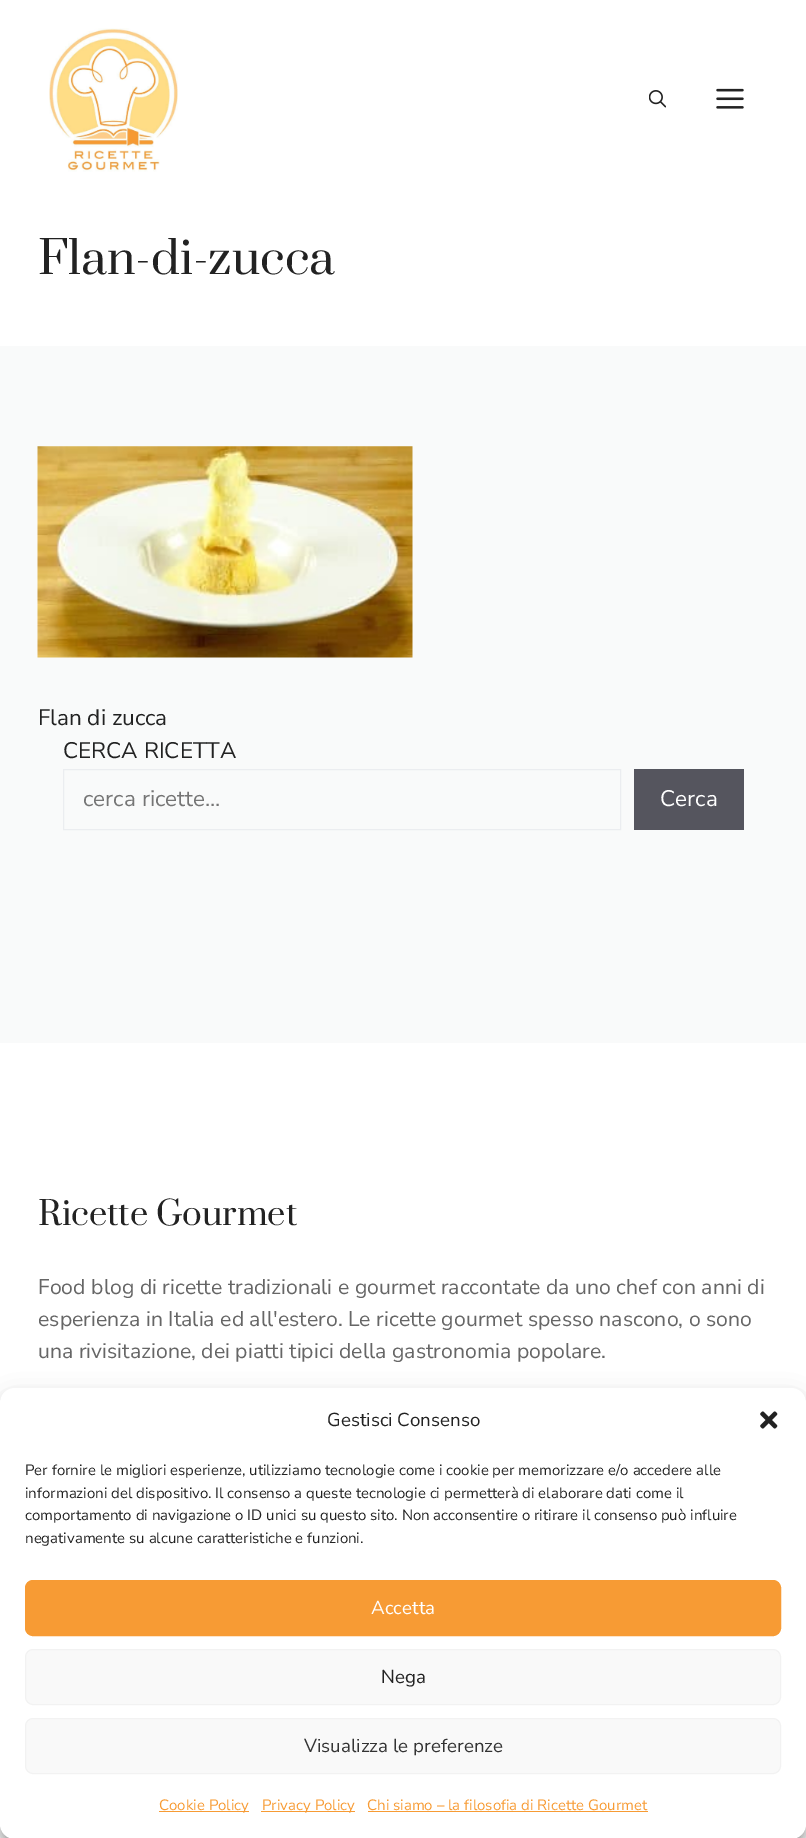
%!PS
<< /PageSize [806 1838] /PageUsesTransparency true >> setpagedevice
/rgb { 3 { 255 div 3 1 roll } repeat setrgbcolor } def
/font { [ exch dup neg 0 0 3 -1 roll 0 0 ] selectfont } def
/alpha { dup .setfillconstantalpha .setstrokeconstantalpha } def
/roundrect { 5 dict begin { /r /h /w /y /x } { exch def } forall
  x r add y moveto x w add y 2 copy h add r arct x w add y h add x 1 index r arct
  x y h add x y r arct x y 2 copy exch w add exch r arct closepath end } def
/shadow { 12 dict begin { /a /b /q /h /w /y /x } { exch def } forall gsave /was 0 def
  9 -2 -9 { dup b mul 4 div /e exch def 1 sub .425 mul 2.718 exch exp 1 add a .99 .min exch div /now exch def
    1 1 now sub 1 was sub div sub alpha /was now def
    w h .min e 2 mul add 0 gt { x e sub y e sub w e 2 mul add h e 2 mul add
      q e add b .6 mul add w h .min 2 div e add .min 0 .max roundrect fill } if } for grestore end } def
/picture { 5 dict begin { /h /w /y /x /name } { exch def } forall
  gsave x y translate w h scale
  w h 8 [w 0 0 h 0 0] name (r) file false 3 colorimage grestore end } def
0 .pushpdf14devicefilter
0 1838 translate 1 -1 scale
4 setmiterlimit
249 250 250 rgb
0 0 806 1838 rectfill
255 255 255 rgb
0 0 806 346 rectfill
(img/1.rgb) 49 28 129 144 picture
(img/2.rgb) 649 90 17 18 picture
(img/3.rgb) 716 88 28 21 picture
(img/4.rgb) 37 446 376 212 picture
235 237 240 rgb
63.5 769.5 557 60 rectstroke
85 85 94 rgb
634 769 110 61 rectfill
255 255 255 rgb
0 1043 806 795 rectfill
0 0 0 rgb
0 1395 806 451 15 4 0.23 shadow
0 1400 806 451 15 12.5 0.19 shadow
255 255 255 rgb
0 1388 806 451 15 roundrect fill
(img/5.rgb) 760 1411 18 18 picture
247 155 52 rgb
25.5 1580.5 755 55 7.5 roundrect gsave fill grestore
stroke
249 249 249 rgb
25.5 1649.5 755 55 7.5 roundrect gsave fill grestore
242 242 242 rgb
stroke
249 249 249 rgb
25.5 1718.5 755 55 7.5 roundrect gsave fill grestore
242 242 242 rgb
stroke
[
  [159 1811 90 1 247 155 52]
  [261 1811 94 1 247 155 52]
  [368 1811 280 1 247 155 52]
] { aload pop rgb rectfill } forall
/Prata-Regular 45 font
34 34 34 rgb
38 274 moveto (Flan-di-zucca) show
/NunitoSans-Regular 22.5 font
38 725 moveto (Flan di zucca) show
63 758 moveto (CERCA RICETTA) show
117 117 117 rgb
83 806 moveto (cerca ricette...) show
255 255 255 rgb
660 806 moveto (Cerca) show
/Prata-Regular 32.5 font
34 34 34 rgb
38 1225 moveto (Ricette Gourmet) show
/NunitoSans-Regular 21.25 font
102 102 102 rgb
[
  [(Food blog di ricette tradizionali e gourmet raccontate da uno chef con anni di) 38 1294]
  [(esperienza in Italia ed all'estero. Le ricette gourmet spesso nascono, o sono) 38 1326]
  [(una rivisitazione, dei piatti tipici della gastronomia popolare.) 38 1358]
] { aload pop moveto show } forall
/NunitoSans-Regular 18.75 font
34 34 34 rgb
327 1426 moveto (Gestisci Consenso) show
/NunitoSans-Regular 15 font
[
  [(Per fornire le migliori esperienze, utilizziamo tecnologie come i cookie per memorizzare e/o accedere alle) 25 1475]
  [(informazioni del dispositivo. Il consenso a queste tecnologie ci permetterà di elaborare dati come il) 25 1498]
  [(comportamento di navigazione o ID unici su questo sito. Non acconsentire o ritirare il consenso può influire) 25 1520]
  [(negativamente su alcune caratteristiche e funzioni.) 25 1543]
] { aload pop moveto show } forall
/NunitoSans-Regular 18.75 font
255 255 255 rgb
371 1614 moveto (Accetta) show
34 34 34 rgb
381 1683 moveto (Nega) show
51 51 51 rgb
304 1752 moveto (Visualizza le preferenze) show
/NunitoSans-Regular 15 font
247 155 52 rgb
[
  [(Cookie Policy) 159 1810]
  [(Privacy Policy) 262 1810]
  [(Chi siamo – la filosofia di Ricette Gourmet) 367 1810]
] { aload pop moveto show } forall
.poppdf14devicefilter showpage
